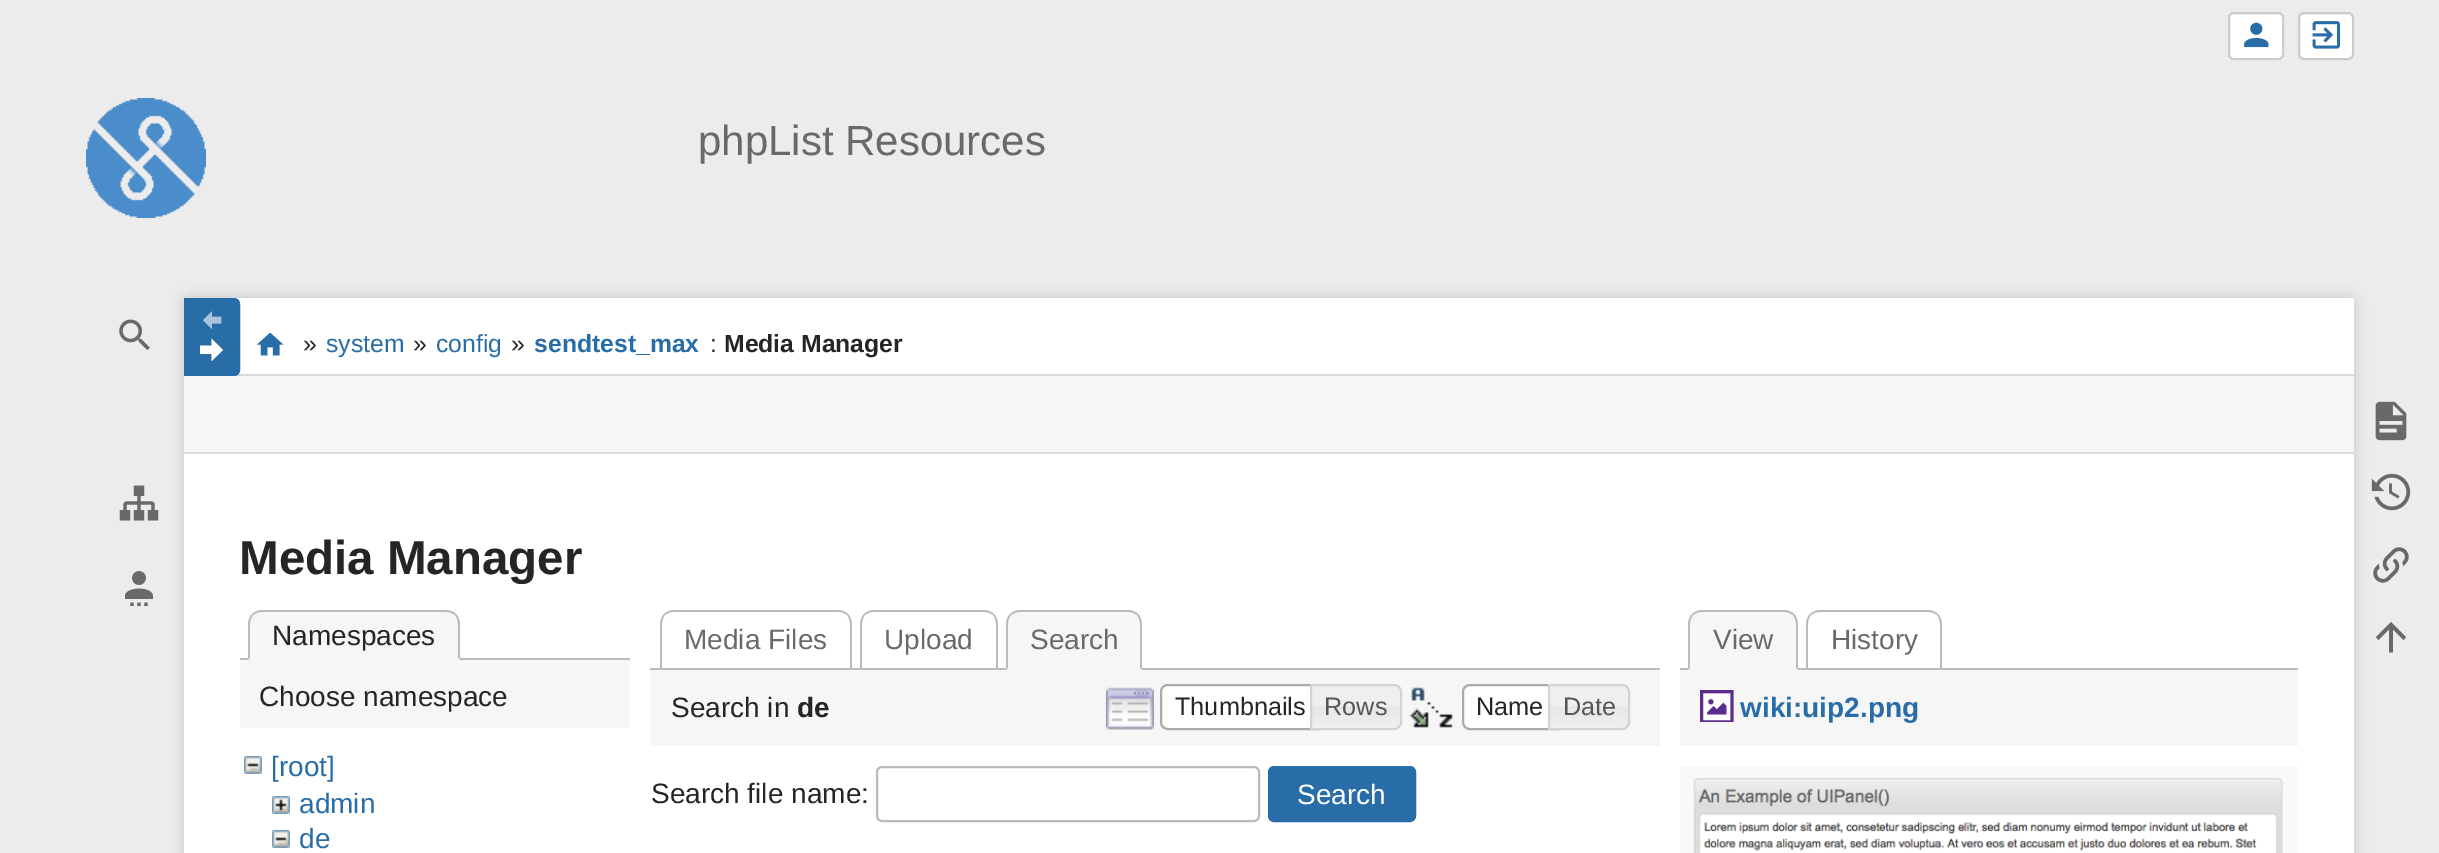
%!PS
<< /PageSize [2439 853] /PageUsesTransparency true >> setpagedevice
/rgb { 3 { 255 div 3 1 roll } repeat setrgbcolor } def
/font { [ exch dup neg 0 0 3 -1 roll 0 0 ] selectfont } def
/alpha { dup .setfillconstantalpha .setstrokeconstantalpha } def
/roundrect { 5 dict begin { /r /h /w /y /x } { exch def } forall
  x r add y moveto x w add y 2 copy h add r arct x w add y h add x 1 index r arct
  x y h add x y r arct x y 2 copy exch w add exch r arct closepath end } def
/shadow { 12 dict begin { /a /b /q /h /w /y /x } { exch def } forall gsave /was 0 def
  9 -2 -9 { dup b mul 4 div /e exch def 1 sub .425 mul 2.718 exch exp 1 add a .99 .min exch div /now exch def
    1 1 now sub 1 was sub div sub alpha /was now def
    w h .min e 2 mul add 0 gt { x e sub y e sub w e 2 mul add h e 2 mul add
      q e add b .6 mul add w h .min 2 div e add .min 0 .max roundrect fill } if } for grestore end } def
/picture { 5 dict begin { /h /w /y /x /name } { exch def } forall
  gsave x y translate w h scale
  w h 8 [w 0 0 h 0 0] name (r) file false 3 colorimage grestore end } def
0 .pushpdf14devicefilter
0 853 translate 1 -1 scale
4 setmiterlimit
236 236 236 rgb
0 0 2439 853 rectfill
255 255 255 rgb
2229 13 54 46 5 roundrect gsave fill grestore
204 204 204 rgb
2 setlinewidth
stroke
(img/1.rgb) 2244 22 25 26 picture
255 255 255 rgb
2299 13 54 46 5 roundrect gsave fill grestore
204 204 204 rgb
stroke
(img/2.rgb) 2312 21 29 28 picture
(img/3.rgb) 86 98 120 120 picture
(img/4.rgb) 119 319 31 31 picture
(img/5.rgb) 119 485 40 36 picture
(img/6.rgb) 125 571 28 35 picture
153 153 153 rgb
184 298 2170 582 6 7 0.5 shadow
[
  [184 454 2170 399 255 255 255]
  [234 298 2120 76 255 255 255]
  [234 374 2120 2 218 218 218]
] { aload pop rgb rectfill } forall
40 109 168 rgb
185 299 moveto 234 299 lineto 237 299 239 301 239 304 curveto 239 370 lineto 239 373 237 375 234 375 curveto 185 375 lineto closepath gsave fill grestore
stroke
(img/7.rgb) 203 311 19 19 picture
255 255 255 rgb
200 354 moveto 200 345.5 lineto 211.5 345.5 lineto 211.5 338.5 lineto 223 350 lineto 211.5 361 lineto 211.5 354 lineto closepath fill
(img/8.rgb) 256 332 28 24 picture
(img/9.rgb) 2375 401 32 40 picture
(img/10.rgb) 2371 473 40 38 picture
(img/11.rgb) 2373 547 36 36 picture
105 105 105 rgb
2393 652.5 moveto 2389 652.5 lineto 2389 629.5 lineto 2378.5 640 lineto 2376 637 lineto 2391 622 lineto 2406 637 lineto 2403.5 640 lineto 2393 629.5 lineto closepath fill
[
  [184 376 2170 76 246 246 246]
  [184 452 2170 2 218 218 218]
  [240 658 390 2 187 187 187]
] { aload pop rgb rectfill } forall
246 246 246 rgb
262 610 moveto 446 610 lineto 453.5 610 460 616.5 460 624 curveto 460 660 lineto 248 660 lineto 248 624 lineto 248 616.5 254.5 610 262 610 curveto closepath fill
187 187 187 rgb
262 610 moveto 258 610 254 612 252 614 curveto 253 615 lineto 256 613 258 612 262 612 curveto 446 612 lineto 450 612 452 613 455 615 curveto 456 614 lineto 454 612 450 610 446 610 curveto closepath fill
460 660 moveto 460 624 lineto 460 620 458 616 456 614 curveto 455 615 lineto 457 618 458 620 458 624 curveto 458 658 lineto closepath fill
246 246 246 rgb
460 660 moveto 458 658 lineto 250 658 lineto 248 660 lineto closepath fill
187 187 187 rgb
248 660 moveto 250 658 lineto 250 624 lineto 250 620 251 618 253 615 curveto 252 614 lineto 250 616 248 620 248 624 curveto closepath fill
246 246 246 rgb
240 660 390 68 rectfill
(img/12.rgb) 244 756 18 18 picture
(img/13.rgb) 272 796 18 18 picture
(img/12.rgb) 272 830 18 18 picture
187 187 187 rgb
674 610 moveto 670 610 666 612 664 614 curveto 665 615 lineto 668 613 670 612 674 612 curveto 838 612 lineto 842 612 844 613 847 615 curveto 848 614 lineto 846 612 842 610 838 610 curveto closepath fill
852 670 moveto 852 624 lineto 852 620 850 616 848 614 curveto 847 615 lineto 849 618 850 620 850 624 curveto 850 668 lineto closepath fill
660 670 moveto 662 668 lineto 662 624 lineto 662 620 663 618 665 615 curveto 664 614 lineto 662 616 660 620 660 624 curveto closepath fill
874 610 moveto 870 610 866 612 864 614 curveto 865 615 lineto 868 613 870 612 874 612 curveto 984 612 lineto 988 612 990 613 993 615 curveto 994 614 lineto 992 612 988 610 984 610 curveto closepath fill
998 670 moveto 998 624 lineto 998 620 996 616 994 614 curveto 993 615 lineto 995 618 996 620 996 624 curveto 996 668 lineto closepath fill
860 670 moveto 862 668 lineto 862 624 lineto 862 620 863 618 865 615 curveto 864 614 lineto 862 616 860 620 860 624 curveto closepath fill
650 668 1010 2 rectfill
246 246 246 rgb
1020 610 moveto 1128 610 lineto 1135.5 610 1142 616.5 1142 624 curveto 1142 670 lineto 1006 670 lineto 1006 624 lineto 1006 616.5 1012.5 610 1020 610 curveto closepath fill
187 187 187 rgb
1020 610 moveto 1016 610 1012 612 1010 614 curveto 1011 615 lineto 1014 613 1016 612 1020 612 curveto 1128 612 lineto 1132 612 1134 613 1137 615 curveto 1138 614 lineto 1136 612 1132 610 1128 610 curveto closepath fill
1142 670 moveto 1142 624 lineto 1142 620 1140 616 1138 614 curveto 1137 615 lineto 1139 618 1140 620 1140 624 curveto 1140 668 lineto closepath fill
246 246 246 rgb
1142 670 moveto 1140 668 lineto 1008 668 lineto 1006 670 lineto closepath fill
187 187 187 rgb
1006 670 moveto 1008 668 lineto 1008 624 lineto 1008 620 1009 618 1011 615 curveto 1010 614 lineto 1008 616 1006 620 1006 624 curveto closepath fill
246 246 246 rgb
650 670 1010 76 rectfill
(img/14.rgb) 1106 687 48 43 picture
255 255 255 rgb
1168 685 moveto 1319 685 lineto 1319 729 lineto 1168 729 lineto 1164 729 1161 726 1161 722 curveto 1161 692 lineto 1161 688 1164 685 1168 685 curveto closepath gsave fill grestore
170 170 170 rgb
stroke
(img/15.rgb) 1312 684 90 46 picture
211 211 211 rgb
1311 685 moveto 1394 685 lineto 1398 685 1401 688 1401 692 curveto 1401 722 lineto 1401 726 1398 729 1394 729 curveto 1311 729 lineto closepath stroke
(img/16.rgb) 1409 687 44 41 picture
255 255 255 rgb
1470 685 moveto 1557 685 lineto 1557 729 lineto 1470 729 lineto 1466 729 1463 726 1463 722 curveto 1463 692 lineto 1463 688 1466 685 1470 685 curveto closepath gsave fill grestore
170 170 170 rgb
stroke
(img/17.rgb) 1550 684 80 46 picture
211 211 211 rgb
1549 685 moveto 1622 685 lineto 1626 685 1629 688 1629 692 curveto 1629 722 lineto 1629 726 1626 729 1622 729 curveto 1549 729 lineto closepath stroke
187 187 187 rgb
877 767 382 54 5 roundrect stroke
40 109 168 rgb
1269 767 146 54 5 roundrect gsave fill grestore
stroke
187 187 187 rgb
1820 610 moveto 1816 610 1812 612 1810 614 curveto 1811 615 lineto 1814 613 1816 612 1820 612 curveto 1928 612 lineto 1932 612 1934 613 1937 615 curveto 1938 614 lineto 1936 612 1932 610 1928 610 curveto closepath fill
1942 670 moveto 1942 624 lineto 1942 620 1940 616 1938 614 curveto 1937 615 lineto 1939 618 1940 620 1940 624 curveto 1940 668 lineto closepath fill
1806 670 moveto 1808 668 lineto 1808 624 lineto 1808 620 1809 618 1811 615 curveto 1810 614 lineto 1808 616 1806 620 1806 624 curveto closepath fill
1680 668 618 2 rectfill
246 246 246 rgb
1702 610 moveto 1784 610 lineto 1791.5 610 1798 616.5 1798 624 curveto 1798 670 lineto 1688 670 lineto 1688 624 lineto 1688 616.5 1694.5 610 1702 610 curveto closepath fill
187 187 187 rgb
1702 610 moveto 1698 610 1694 612 1692 614 curveto 1693 615 lineto 1696 613 1698 612 1702 612 curveto 1784 612 lineto 1788 612 1790 613 1793 615 curveto 1794 614 lineto 1792 612 1788 610 1784 610 curveto closepath fill
1798 670 moveto 1798 624 lineto 1798 620 1796 616 1794 614 curveto 1793 615 lineto 1795 618 1796 620 1796 624 curveto 1796 668 lineto closepath fill
246 246 246 rgb
1798 670 moveto 1796 668 lineto 1690 668 lineto 1688 670 lineto closepath fill
187 187 187 rgb
1688 670 moveto 1690 668 lineto 1690 624 lineto 1690 620 1691 618 1693 615 curveto 1692 614 lineto 1690 616 1688 620 1688 624 curveto closepath fill
246 246 246 rgb
1680 670 618 76 rectfill
(img/18.rgb) 1700 690 34 32 picture
(img/19.rgb) 1680 766 618 87 picture
/LiberationSans-Regular 42 font
105 105 105 rgb
698 155 moveto (phpList Resources) show
/LiberationSans-Regular 24.75 font
37 37 37 rgb
303 352 moveto (») show
40 109 168 rgb
326 352 moveto (system) show
37 37 37 rgb
413 352 moveto (») show
40 109 168 rgb
436 352 moveto (config) show
37 37 37 rgb
511 352 moveto (») show
/LiberationSans-Bold 24.75 font
40 109 168 rgb
534 352 moveto (sendtest_max) show
/LiberationSans-Regular 24.75 font
37 37 37 rgb
710 352 moveto (:) show
/LiberationSans-Bold 24.75 font
724 352 moveto (Media Manager) show
/LiberationSans-Bold 47.5 font
239 574 moveto (Media Manager) show
/LiberationSans-Regular 28 font
272 645 moveto (Namespaces) show
259 706 moveto (Choose namespace) show
40 109 168 rgb
[
  [([root]) 271 776]
  [(admin) 299 813]
  [(de) 299 848]
] { aload pop moveto show } forall
105 105 105 rgb
[
  [(Media Files) 684 649]
  [(Upload) 884 649]
  [(Search) 1030 649]
] { aload pop moveto show } forall
37 37 37 rgb
671 717 moveto (Search in) show
/LiberationSans-Bold 28 font
797 717 moveto (de) show
/LiberationSans-Regular 25.25 font
1175 715 moveto (Thumbnails) show
85 85 85 rgb
1324 715 moveto (Rows) show
37 37 37 rgb
1476 715 moveto (Name) show
85 85 85 rgb
1563 715 moveto (Date) show
/LiberationSans-Regular 28 font
37 37 37 rgb
651 803 moveto (Search file name:) show
255 255 255 rgb
1297 804 moveto (Search) show
105 105 105 rgb
1713 649 moveto (View) show
1831 649 moveto (History) show
/LiberationSans-Bold 28 font
40 109 168 rgb
1740 717 moveto (wiki:uip2.png) show
.poppdf14devicefilter showpage
